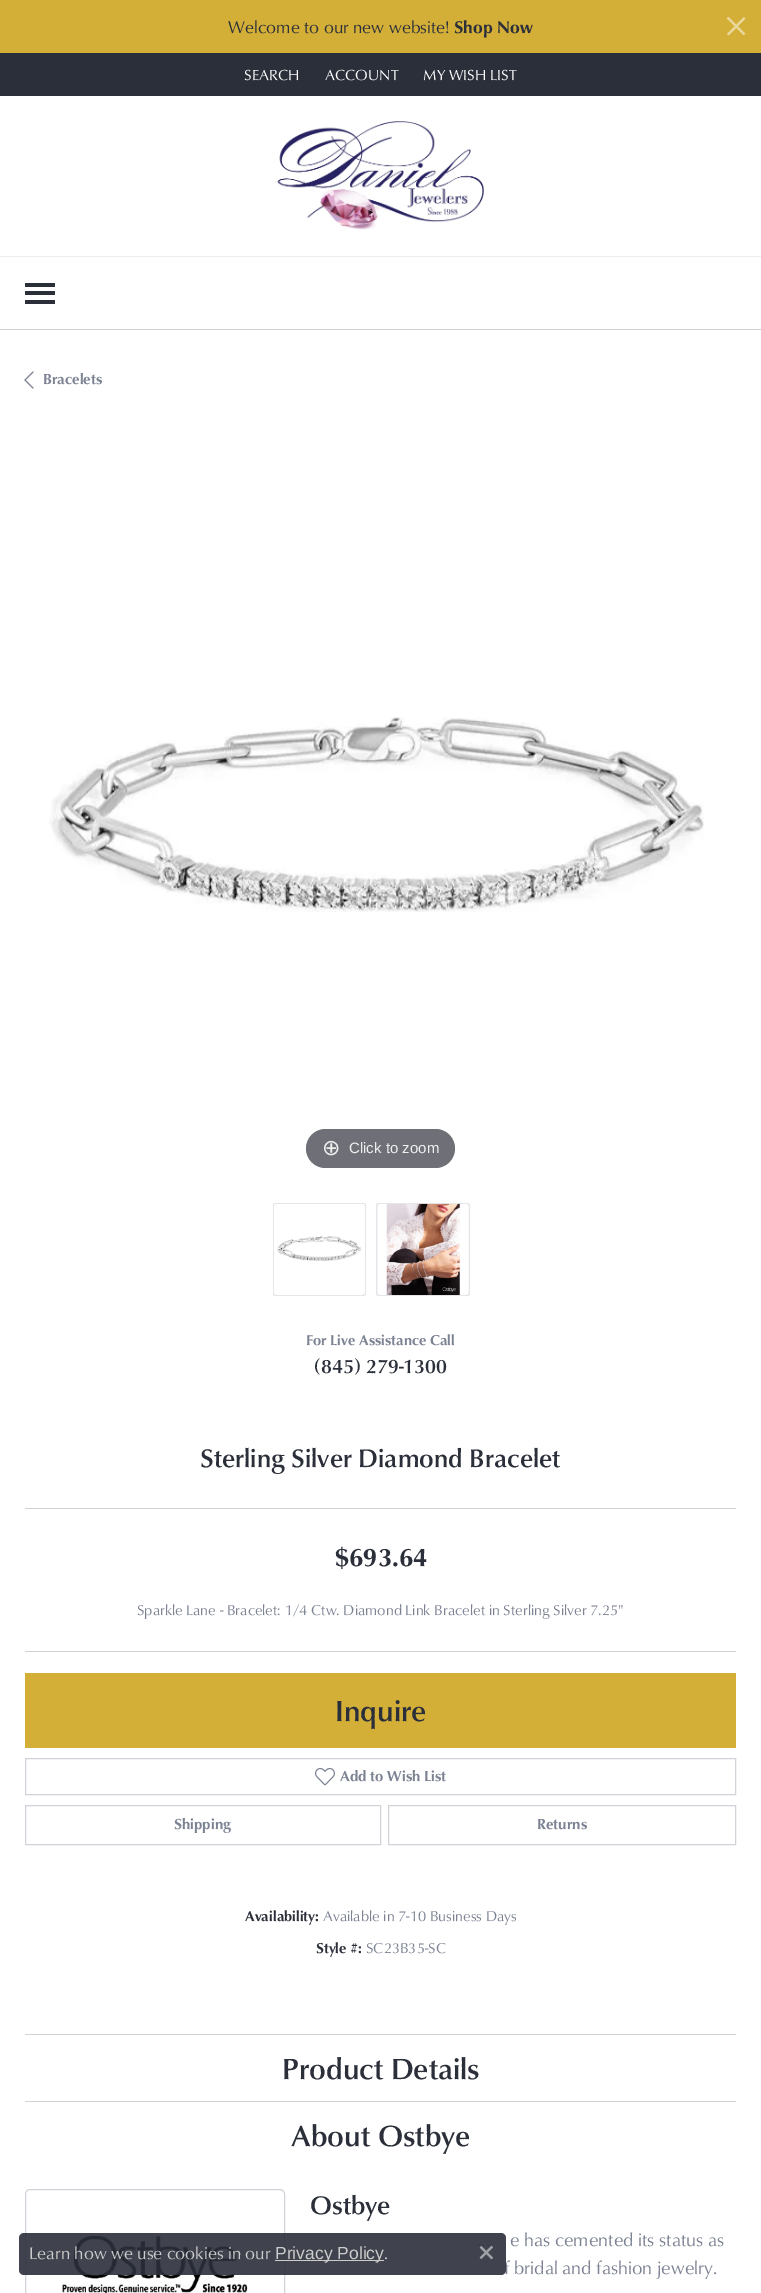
%!PS
<< /PageSize [761 2293] /PageUsesTransparency true >> setpagedevice
/rgb { 3 { 255 div 3 1 roll } repeat setrgbcolor } def
/font { [ exch dup neg 0 0 3 -1 roll 0 0 ] selectfont } def
/alpha { dup .setfillconstantalpha .setstrokeconstantalpha } def
/roundrect { 5 dict begin { /r /h /w /y /x } { exch def } forall
  x r add y moveto x w add y 2 copy h add r arct x w add y h add x 1 index r arct
  x y h add x y r arct x y 2 copy exch w add exch r arct closepath end } def
/picture { 5 dict begin { /h /w /y /x /name } { exch def } forall
  gsave x y translate w h scale
  w h 8 [w 0 0 h 0 0] name (r) file false 3 colorimage grestore end } def
0 .pushpdf14devicefilter
0 2293 translate 1 -1 scale
4 setmiterlimit
43 47 58 rgb
0 0 761 2293 rectfill
212 175 55 rgb
0 0 761 53 rectfill
(img/1.rgb) 726 16 20 20 picture
255 255 255 rgb
0 96 761 160 rectfill
(img/2.rgb) 277 121 207 109 picture
[
  [0 257 761 72 255 255 255]
  [0 256 761 1 236 236 236]
  [0 329 761 1 210 211 217]
  [25 283 30 4 43 47 58]
  [25 291 30 4 43 47 58]
  [25 300 30 4 43 47 58]
  [0 330 761 1963 255 255 255]
] { aload pop rgb rectfill } forall
(img/3.rgb) 24 371 10 18 picture
(img/4.rgb) 49 717 655 195 picture
111 112 119 rgb
306 1129 149 39 19.5 roundrect fill
237 238 240 rgb
273 1203 93 93 2.5 roundrect fill
0.07 alpha
123 130 146 rgb
273.5 1203.5 92 92 2 roundrect stroke
1 alpha
(img/5.rgb) 274 1204 91 91 picture
237 238 240 rgb
376 1203 94 93 2.5 roundrect fill
0.07 alpha
123 130 146 rgb
376.5 1203.5 93 92 2 roundrect stroke
1 alpha
(img/6.rgb) 377 1203 92 92 picture
[
  [25 1508 711 1 207 209 213]
  [25 1651 711 1 207 209 213]
  [25 1673 711 75 212 175 55]
] { aload pop rgb rectfill } forall
210 211 217 rgb
25.5 1758.5 710 36 rectstroke
(img/7.rgb) 315 1767 20 19 picture
25.5 1805.5 355 39 rectstroke
388.5 1805.5 347 39 rectstroke
25 2034 711 1 rectfill
25 2101 711 1 rectfill
25.5 2189.5 259 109 4.5 roundrect stroke
(img/8.rgb) 61 2234 187 59 picture
/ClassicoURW-Regular 17.5 font
43 47 58 rgb
228 33 moveto (Welcome to our new website!) show
/ClassicoURW-Bold 17.5 font
454 33 moveto (Shop Now) show
/ClassicoURW-Regular 15 font
255 255 255 rgb
[
  [(SEARCH) 244 80]
  [(ACCOUNT) 325 80]
  [(MY WISH LIST) 423 80]
] { aload pop moveto show } forall
/ClassicoURW-Bold 15 font
123 130 146 rgb
43 384 moveto (Bracelets) show
/DejaVuSans-Regular 22 font
238 238 238 rgb
322 1155 moveto (⊕) show
/LiberationSans-Regular 15 font
349 1153 moveto (Click to zoom) show
/ClassicoURW-Bold 14.75 font
123 130 146 rgb
306 1345 moveto (For Live Assistance Call) show
/ClassicoURW-Medium 20 font
43 47 58 rgb
314 1373 moveto (\(845\) 279-1300) show
/ClassicoURW-Medium 26.1 font
200 1467 moveto (Sterling Silver Diamond Bracelet) show
/ClassicoURW-Bold 26 font
335 1566 moveto ($693.64) show
/ClassicoURW-Regular 14.75 font
123 130 146 rgb
137 1615 moveto (Sparkle Lane - Bracelet: 1/4 Ctw. Diamond Link Bracelet in Sterling Silver 7.25") show
/ClassicoURW-Medium 30 font
43 47 58 rgb
335 1721 moveto (Inquire) show
/ClassicoURW-Bold 15 font
123 130 146 rgb
[
  [(Add to Wish List) 340 1781]
  [(Shipping) 174 1829]
  [(Returns) 537 1829]
] { aload pop moveto show } forall
/ClassicoURW-Bold 14.75 font
43 47 58 rgb
245 1921 moveto (Availability:) show
/ClassicoURW-Regular 14.75 font
123 130 146 rgb
323 1921 moveto (Available in 7-10 Business Days) show
/ClassicoURW-Bold 14.75 font
43 47 58 rgb
316 1953 moveto (Style #:) show
/ClassicoURW-Regular 14.75 font
123 130 146 rgb
366 1953 moveto (SC23B35-SC) show
/ClassicoURW-Medium 30 font
43 47 58 rgb
282 2079 moveto (Product Details) show
291 2146 moveto (About Ostbye) show
/ClassicoURW-Medium 26.1 font
310 2214 moveto (Ostbye) show
/ClassicoURW-Regular 18.5 font
123 130 146 rgb
510 2246 moveto (e has cemented its status as) show
504 2274 moveto (f bridal and fashion jewelry.) show
0.9 alpha
43 47 58 rgb
19 2233 487 42 5 roundrect fill
/ClassicoURW-Regular 17.5 font
1 alpha
204 204 204 rgb
29 2259 moveto (Learn how we use cookies in our) show
275 2260 109 1 rectfill
/LiberationSans-Regular 17.5 font
275 2259 moveto (Privacy Policy) show
/ClassicoURW-Regular 17.5 font
384 2259 moveto (.) show
(img/9.rgb) 479 2245 14 15 picture
.poppdf14devicefilter showpage
